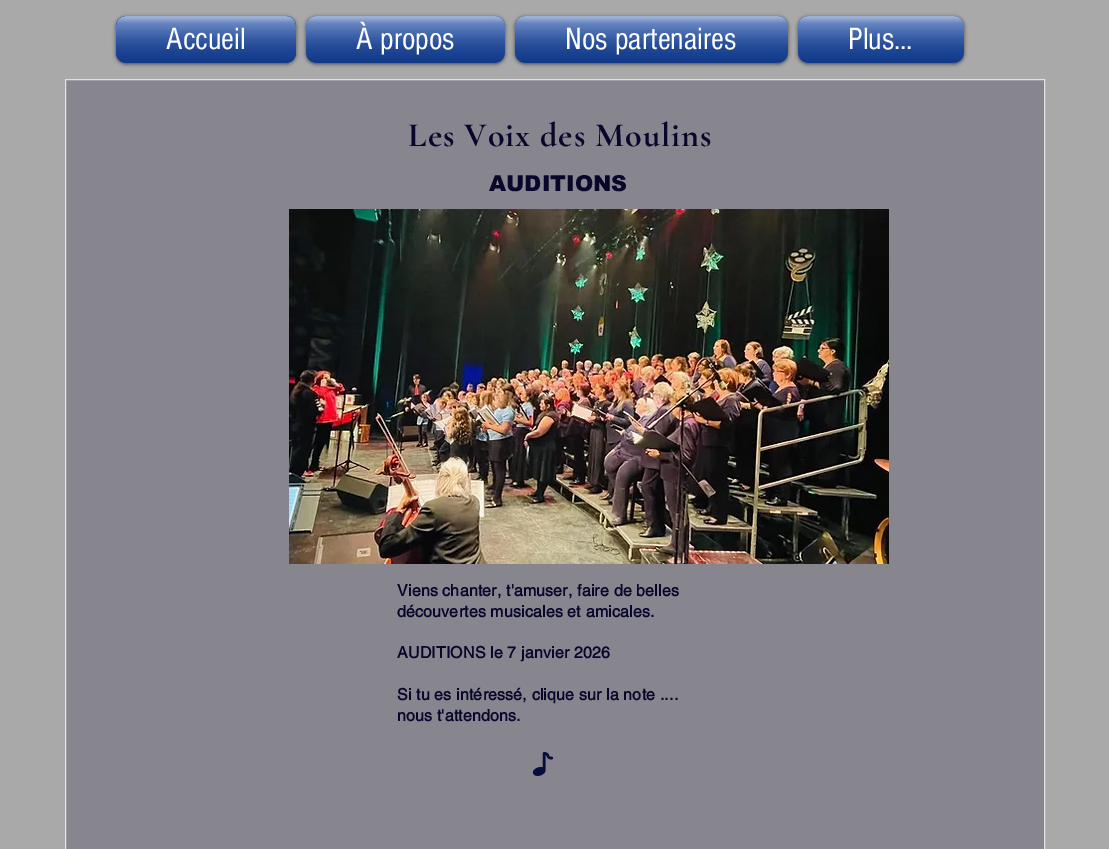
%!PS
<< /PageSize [1109 849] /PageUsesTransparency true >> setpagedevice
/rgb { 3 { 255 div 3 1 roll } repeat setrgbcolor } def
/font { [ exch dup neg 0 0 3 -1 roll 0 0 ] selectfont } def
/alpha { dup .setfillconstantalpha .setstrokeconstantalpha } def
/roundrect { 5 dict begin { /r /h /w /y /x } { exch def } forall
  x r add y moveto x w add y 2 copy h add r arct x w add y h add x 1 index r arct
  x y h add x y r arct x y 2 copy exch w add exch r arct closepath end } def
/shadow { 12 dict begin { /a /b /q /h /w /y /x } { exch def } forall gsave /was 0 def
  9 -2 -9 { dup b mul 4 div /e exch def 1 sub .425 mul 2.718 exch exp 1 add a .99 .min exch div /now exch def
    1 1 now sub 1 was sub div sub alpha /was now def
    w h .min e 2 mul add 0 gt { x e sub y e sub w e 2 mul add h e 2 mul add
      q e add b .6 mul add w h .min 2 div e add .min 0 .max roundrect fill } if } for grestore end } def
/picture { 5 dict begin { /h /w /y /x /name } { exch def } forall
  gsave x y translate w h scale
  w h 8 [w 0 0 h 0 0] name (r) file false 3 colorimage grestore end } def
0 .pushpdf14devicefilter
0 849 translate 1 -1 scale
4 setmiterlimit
169 169 169 rgb
0 0 1109 849 rectfill
0 0 0 rgb
116 17 180 47 10 2 0.6 shadow
15 62 155 rgb
116 16 180 47 10 roundrect fill
(img/1.rgb) 116 16 180 46 picture
(img/2.rgb) 116 29 180 34 picture
0 0 0 rgb
306 17 199 47 10 2 0.6 shadow
15 62 155 rgb
306 16 199 47 10 roundrect fill
(img/3.rgb) 306 16 199 46 picture
(img/4.rgb) 306 29 199 34 picture
0 0 0 rgb
515 17 273 47 10 2 0.6 shadow
15 62 155 rgb
515 16 273 47 10 roundrect fill
(img/5.rgb) 515 16 273 46 picture
(img/6.rgb) 515 29 273 34 picture
0 0 0 rgb
798 17 166 47 10 2 0.6 shadow
15 62 155 rgb
798 16 166 47 10 roundrect fill
(img/7.rgb) 798 16 166 46 picture
(img/8.rgb) 798 29 166 34 picture
135 134 142 rgb
65.5 79.5 moveto 1044.5 79.5 lineto 1044.5 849.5 lineto 65.5 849.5 lineto closepath gsave fill grestore
227 223 232 rgb
stroke
(img/9.rgb) 289 209 600 355 picture
(img/10.rgb) 532 752 22 24 picture
/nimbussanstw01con-Regular 32 font
255 255 255 rgb
[
  [(Accueil) 166 49]
  [(À propos) 356 49]
  [(Nos partenaires) 565 49]
  [(Plus...) 848 49]
] { aload pop moveto show } forall
/CormorantGaramond-Bold 34 font
9 6 44 rgb
408 146 moveto 1 0 (Les Voix des Moulins) ashow
/arial-Black 22 font
489 191 moveto (AUDITIONS) show
/helvetica-Bold 16 font
397 596 moveto 0.15 0 (Viens chanter, t'amuser, faire de belles) ashow
397 617 moveto 0.15 0 (découvertes musicales et amicales.) ashow
397 658 moveto 0.15 0 (AUDITIONS le 7 janvier 2026) ashow
397 700 moveto 0.15 0 (Si tu es intéressé, clique sur la note ....) ashow
397 721 moveto 0.15 0 (nous t'attendons.) ashow
.poppdf14devicefilter showpage
